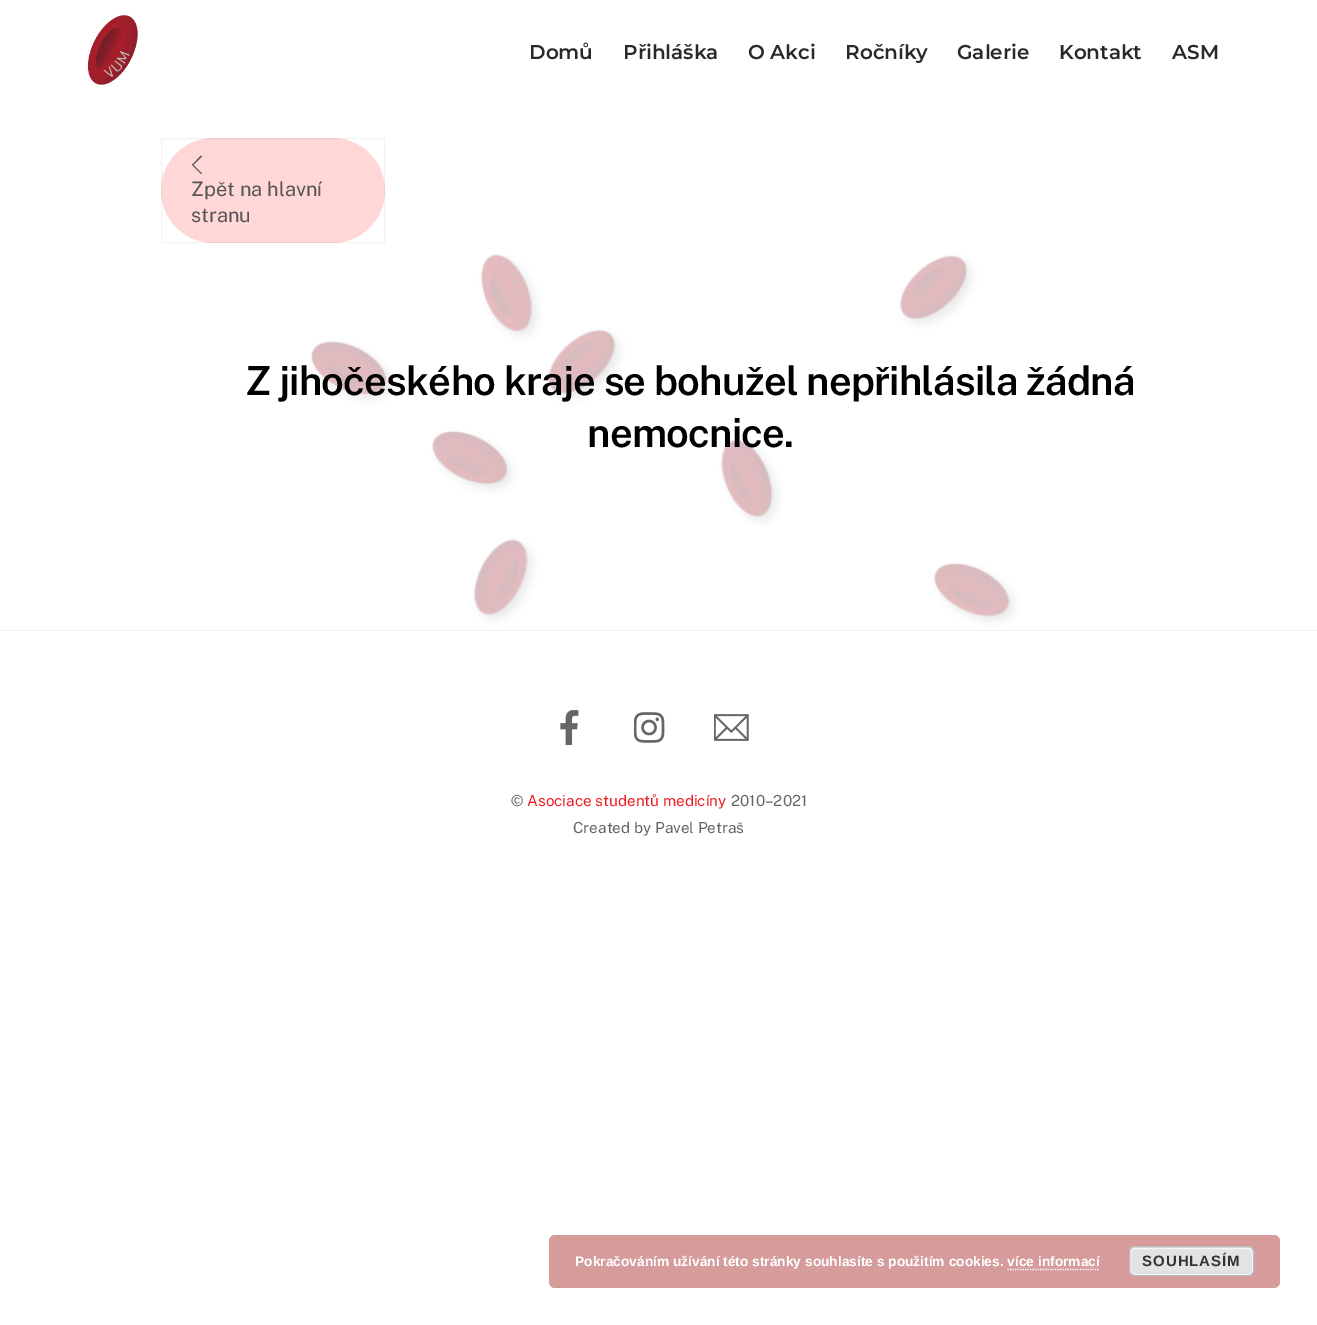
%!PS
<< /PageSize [1317 1325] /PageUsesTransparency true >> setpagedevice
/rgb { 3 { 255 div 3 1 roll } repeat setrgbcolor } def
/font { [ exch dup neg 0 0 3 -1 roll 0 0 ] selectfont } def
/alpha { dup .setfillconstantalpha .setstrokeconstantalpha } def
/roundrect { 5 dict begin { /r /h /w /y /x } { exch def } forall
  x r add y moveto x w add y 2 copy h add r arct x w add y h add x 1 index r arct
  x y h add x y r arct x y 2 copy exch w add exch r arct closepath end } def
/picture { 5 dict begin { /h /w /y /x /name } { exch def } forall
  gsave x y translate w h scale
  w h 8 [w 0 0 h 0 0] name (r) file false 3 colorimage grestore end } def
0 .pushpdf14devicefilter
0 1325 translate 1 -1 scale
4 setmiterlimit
255 255 255 rgb
0 0 1317 1325 rectfill
(img/1.rgb) 87 15 51 70 picture
255 215 215 rgb
161 138 224 105 52.5 roundrect fill
0.05 alpha
0 0 0 rgb
161.5 138.5 223 104 rectstroke
1 alpha
85 85 85 rgb
193.5 165 moveto 202 156.5 lineto 201 155.5 lineto 192 165 lineto 201 174 lineto 202 173.5 lineto closepath fill
(img/2.rgb) 310 253 710 374 picture
242 242 242 rgb
0 630 1317 1 rectfill
(img/3.rgb) 560 710 19 35 picture
(img/4.rgb) 634 712 31 31 picture
(img/5.rgb) 714 714 35 27 picture
214 156 156 rgb
549 1235 731 53 6 roundrect fill
227 227 227 rgb
1129 1246 125 30 6 roundrect fill
246 246 246 rgb
1130.5 1248.5 122 26 4.5 roundrect stroke
187 187 187 rgb
1129.5 1246.5 124 29 5.5 roundrect stroke
255 255 255 rgb
1.2 setlinewidth
[1.25 1.25] 0 setdash
1007.5 1269.5 moveto 1100 1269.5 lineto stroke
/Montserrat-SemiBold 20 font
41 41 41 rgb
[
  [(Domů) 529 59]
  [(Přihláška) 623 59]
  [(O Akci) 748 59]
  [(Ročníky) 845 59]
  [(Galerie) 957 59]
  [(Kontakt) 1059 59]
  [(ASM) 1172 59]
] { aload pop moveto show } forall
/PublicSans-Regular 20 font
85 85 85 rgb
191 196 moveto (Zpět na hlavní) show
191 222 moveto (stranu) show
/PublicSans-SemiBold 40 font
0 0 0 rgb
245 395 moveto -0.8 0 (Z jihočeského kraje se bohužel nepřihlásila žádná) ashow
587 447 moveto -0.8 0 (nemocnice.) ashow
/PublicSans-Regular 15.25 font
102 102 102 rgb
511 806 moveto (©) show
237 30 36 rgb
527 806 moveto (Asociace studentů medicíny) show
102 102 102 rgb
731 806 moveto (2010–2021) show
573 833 moveto (Created by Pavel Petraš) show
/LiberationSans-Bold 13.75 font
255 255 255 rgb
575 1266 moveto (Pokračováním užívání této stránky souhlasíte s použitím cookies. více informací) show
/LiberationSans-Bold 15 font
51 51 51 rgb
1142 1266 moveto 1 0 (SOUHLASÍM) ashow
.poppdf14devicefilter showpage
